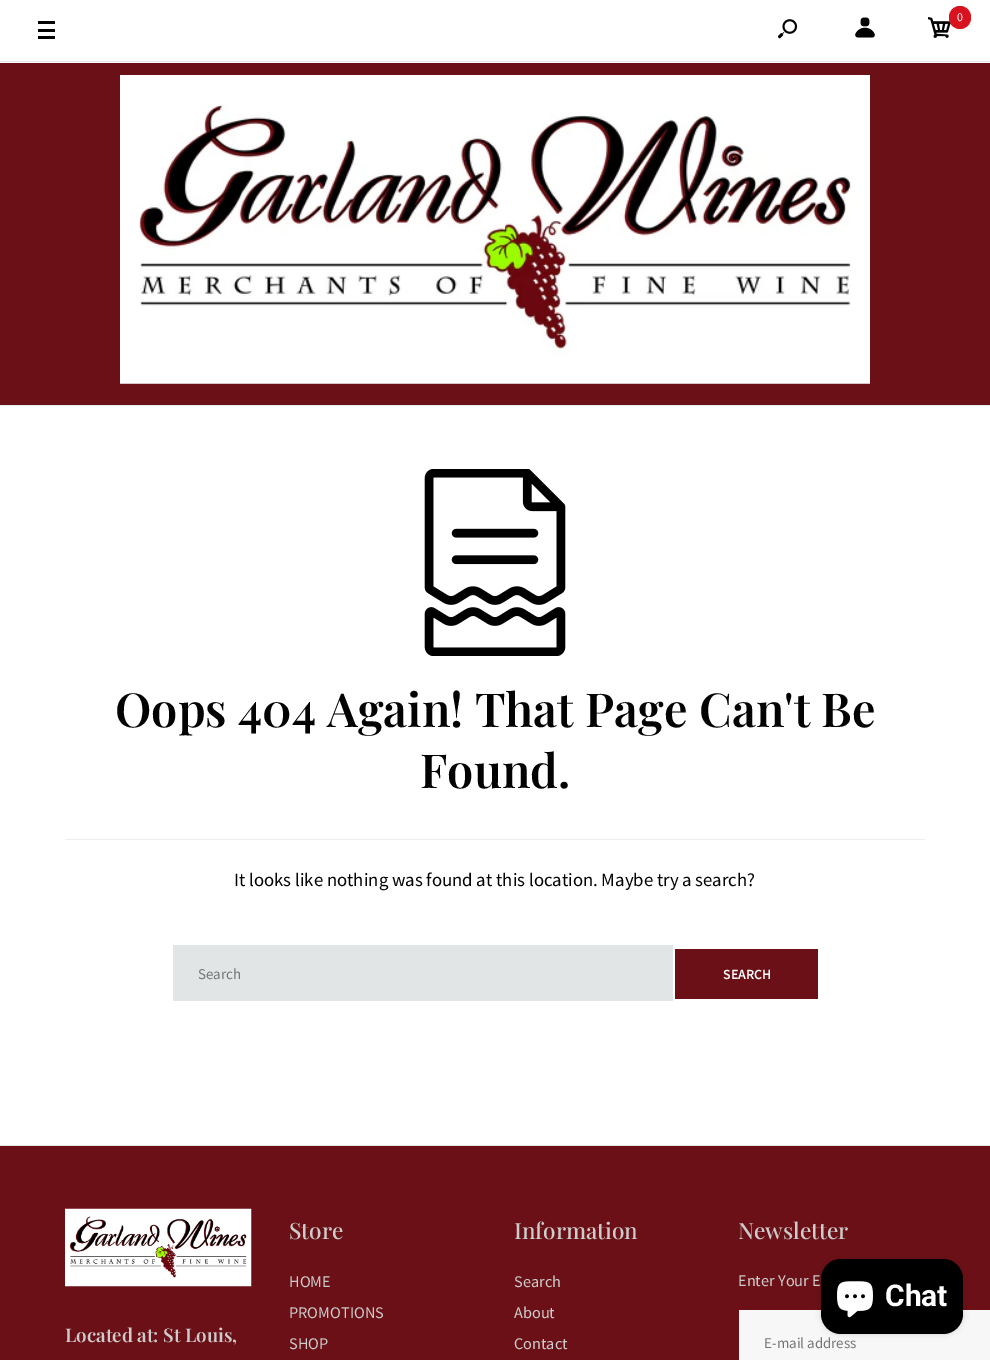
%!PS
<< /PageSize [990 1360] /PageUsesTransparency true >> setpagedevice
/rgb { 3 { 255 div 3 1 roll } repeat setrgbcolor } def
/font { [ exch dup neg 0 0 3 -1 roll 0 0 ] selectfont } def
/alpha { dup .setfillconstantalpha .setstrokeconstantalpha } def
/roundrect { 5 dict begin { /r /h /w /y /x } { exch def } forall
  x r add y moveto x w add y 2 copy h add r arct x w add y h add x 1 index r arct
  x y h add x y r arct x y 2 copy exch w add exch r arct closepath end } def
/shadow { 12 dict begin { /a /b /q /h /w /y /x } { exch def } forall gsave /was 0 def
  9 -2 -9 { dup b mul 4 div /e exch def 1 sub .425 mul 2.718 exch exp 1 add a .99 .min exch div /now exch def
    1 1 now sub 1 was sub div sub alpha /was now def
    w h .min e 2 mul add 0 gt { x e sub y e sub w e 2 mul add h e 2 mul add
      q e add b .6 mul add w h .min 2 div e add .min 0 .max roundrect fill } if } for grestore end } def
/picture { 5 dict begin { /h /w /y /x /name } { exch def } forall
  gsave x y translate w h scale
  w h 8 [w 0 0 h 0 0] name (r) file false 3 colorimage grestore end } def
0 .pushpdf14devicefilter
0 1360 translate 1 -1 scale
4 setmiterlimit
255 255 255 rgb
0 0 990 1360 rectfill
[
  [0 61 990 1 231 231 231]
  [38 29 17 3 2 2 2]
  [38 21 17 3 2 2 2]
  [38 36 17 3 2 2 2]
] { aload pop rgb rectfill } forall
(img/1.rgb) 778 19 20 20 picture
(img/2.rgb) 855 17 20 21 picture
(img/3.rgb) 928 17 23 21 picture
217 18 31 rgb
949 6 22 23 11 roundrect fill
107 16 22 rgb
0 63 990 342 rectfill
(img/4.rgb) 120 75 750 309 picture
237 237 237 rgb
0 405 990 1 rectfill
238 238 238 rgb
65 839 860 1 rectfill
(img/5.rgb) 424 469 142 187 picture
[
  [173 945 500 56 225 229 230]
  [675 949 143 50 107 16 22]
  [0 1146 990 214 107 16 22]
  [0 1145 990 1 229 229 229]
] { aload pop rgb rectfill } forall
(img/6.rgb) 65 1208 187 79 picture
247 247 247 rgb
739 1310 251 50 rectfill
0 0 0 rgb
821 1259 142 75 20 3 0.15 shadow
821 1259 142 75 20 roundrect fill
(img/7.rgb) 837 1281 36 37 picture
/SourceSansPro-Regular 12 font
255 255 255 rgb
957 21 moveto (0) show
/PlayfairDisplay-SemiBold 46.9 font
2 2 2 rgb
115 727 moveto (Oops 404 Again! That Page Can't Be) show
420 788 moveto (Found.) show
/SourceSansPro-Regular 18.75 font
234 886 moveto (It looks like nothing was found at this location. Maybe try a search?) show
/SourceSansPro-Regular 15 font
117 117 117 rgb
198 979 moveto (Search) show
/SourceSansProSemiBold-SemiBold 14 font
255 255 255 rgb
723 979 moveto (SEARCH) show
/PlayfairDisplay-SemiBold 18.75 font
204 204 204 rgb
65 1342 moveto (Located at: St Louis,) show
/PlayfairDisplay-Medium 22.5 font
289 1239 moveto (Store) show
/SourceSansPro-Regular 16.25 font
[
  [(HOME) 289 1287]
  [(PROMOTIONS) 289 1318]
  [(SHOP) 289 1349]
] { aload pop moveto show } forall
/PlayfairDisplay-Medium 22.5 font
514 1239 moveto (Information) show
/SourceSansPro-Regular 16.25 font
[
  [(Search) 514 1287]
  [(About) 514 1318]
  [(Contact) 514 1349]
] { aload pop moveto show } forall
/PlayfairDisplay-Medium 22.5 font
738 1239 moveto (Newsletter) show
/SourceSansPro-Regular 16.25 font
738 1286 moveto (Enter Your E) show
/SourceSansPro-Regular 15 font
117 117 117 rgb
764 1348 moveto (E-mail address) show
/Roboto-Bold 30 font
255 255 255 rgb
885 1306 moveto (Chat) show
.poppdf14devicefilter showpage
